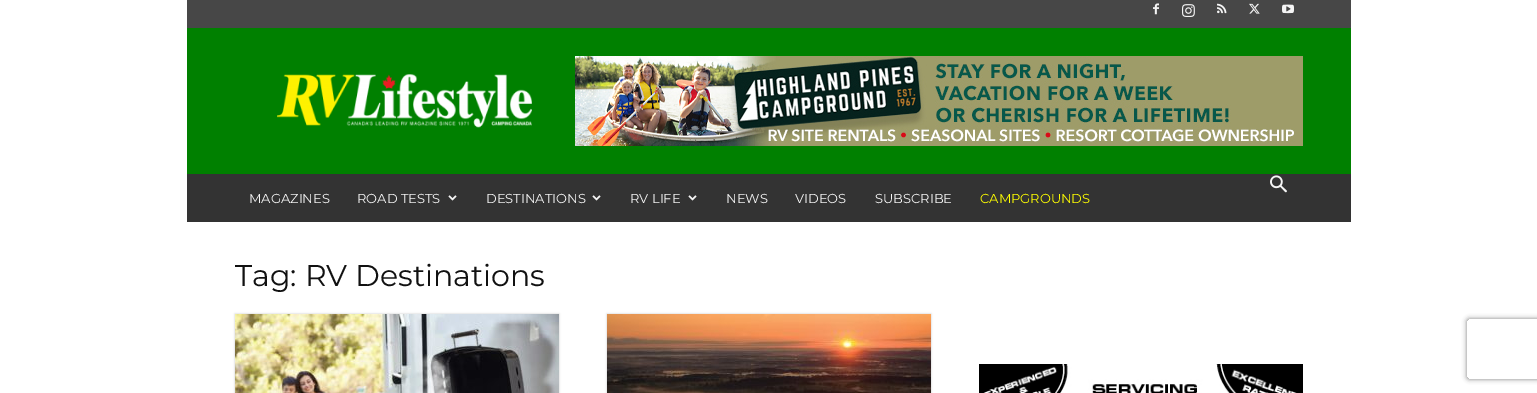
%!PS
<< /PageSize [1537 393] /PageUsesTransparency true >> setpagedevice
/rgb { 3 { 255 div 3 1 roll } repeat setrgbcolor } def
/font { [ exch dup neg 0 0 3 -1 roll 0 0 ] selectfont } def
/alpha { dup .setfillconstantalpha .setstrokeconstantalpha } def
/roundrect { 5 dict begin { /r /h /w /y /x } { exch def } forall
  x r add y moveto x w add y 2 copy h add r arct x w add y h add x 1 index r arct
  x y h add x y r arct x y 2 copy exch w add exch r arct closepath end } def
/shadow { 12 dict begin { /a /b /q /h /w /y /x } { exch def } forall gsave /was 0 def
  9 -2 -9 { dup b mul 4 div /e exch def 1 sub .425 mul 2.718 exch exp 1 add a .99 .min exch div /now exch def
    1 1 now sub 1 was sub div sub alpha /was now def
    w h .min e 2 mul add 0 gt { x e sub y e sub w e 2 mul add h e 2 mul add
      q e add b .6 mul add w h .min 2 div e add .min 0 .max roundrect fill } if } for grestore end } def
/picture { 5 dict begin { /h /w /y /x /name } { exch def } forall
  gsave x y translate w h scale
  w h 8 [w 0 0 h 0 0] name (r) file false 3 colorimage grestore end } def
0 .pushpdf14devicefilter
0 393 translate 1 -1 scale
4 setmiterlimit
255 255 255 rgb
0 0 1537 393 rectfill
71 71 71 rgb
187 0 1164 28 rectfill
(img/1.rgb) 1153 3 6 12 picture
(img/2.rgb) 1182 4 13 13 picture
(img/3.rgb) 1217 3 10 11 picture
(img/4.rgb) 1249 3 11 11 picture
(img/5.rgb) 1282 4 12 10 picture
0 128 0 rgb
187 28 1164 146 rectfill
(img/6.rgb) 277 74 255 54 picture
(img/7.rgb) 575 56 728 90 picture
51 51 51 rgb
187 174 1164 48 rectfill
(img/8.rgb) 1270 175 17 18 picture
(img/9.rgb) 448 195 9 6 picture
(img/9.rgb) 592 195 9 6 picture
(img/9.rgb) 688 195 9 6 picture
102 102 102 rgb
235 314 324 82 0 1 0.4 shadow
(img/10.rgb) 235 314 324 79 picture
607 314 324 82 0 1 0.4 shadow
(img/11.rgb) 607 314 324 79 picture
(img/12.rgb) 979 364 324 29 picture
gsave
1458 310 moveto 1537 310 lineto 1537 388 lineto 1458 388 lineto closepath 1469 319 moveto 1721 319 lineto 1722 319 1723 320 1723 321 curveto 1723 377 lineto 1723 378 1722 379 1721 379 curveto 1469 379 lineto 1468 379 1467 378 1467 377 curveto 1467 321 lineto 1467 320 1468 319 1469 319 curveto closepath eoclip newpath
128 128 128 rgb
1467 319 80 60 2 2.5 1 shadow
grestore
/Montserrat-Regular 13 font
245 245 245 rgb
[
  [(MAGAZINES) 249 203]
  [(ROAD TESTS) 357 203]
  [(DESTINATIONS) 486 203]
  [(RV LIFE) 630 203]
  [(NEWS) 726 203]
  [(VIDEOS) 795 203]
  [(SUBSCRIBE) 875 203]
] { aload pop moveto show } forall
255 255 0 rgb
980 203 moveto (CAMPGROUNDS) show
/Montserrat-Regular 30 font
17 17 17 rgb
235 286 moveto (Tag: RV Destinations) show
.poppdf14devicefilter showpage
